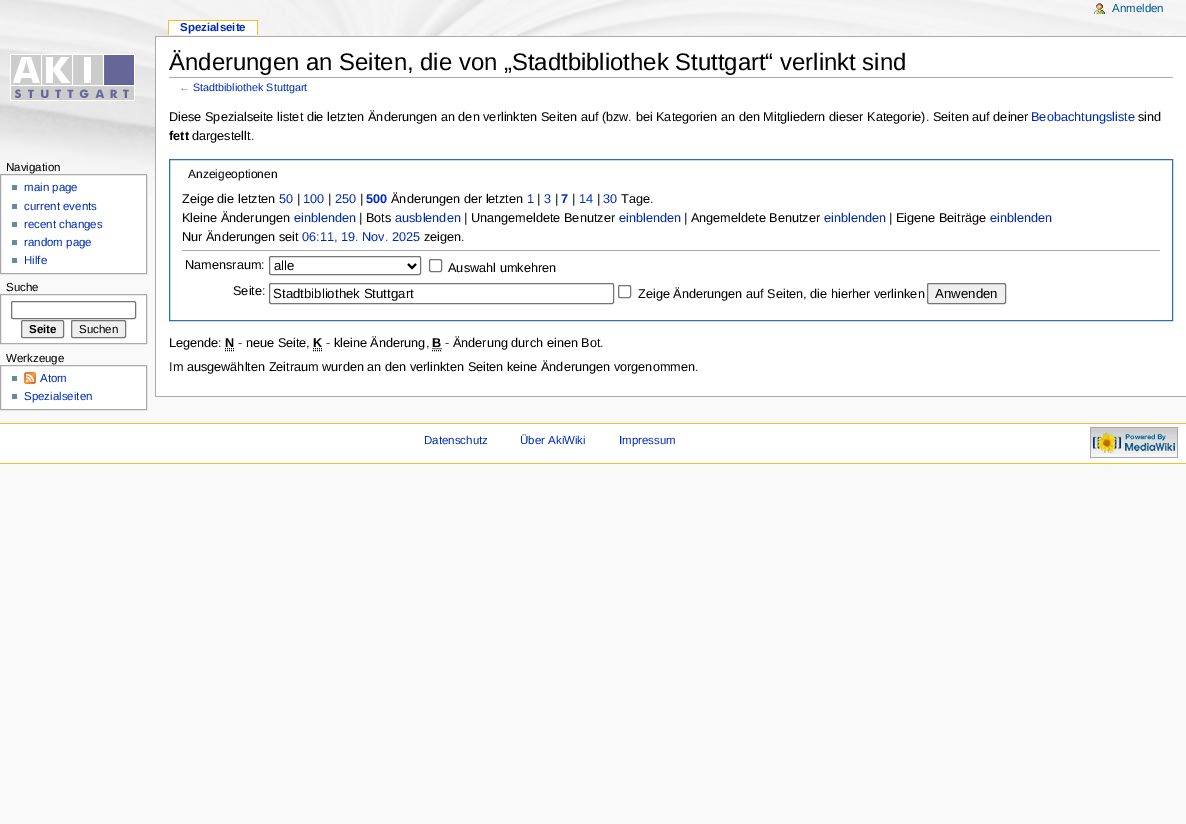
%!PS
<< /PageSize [1186 824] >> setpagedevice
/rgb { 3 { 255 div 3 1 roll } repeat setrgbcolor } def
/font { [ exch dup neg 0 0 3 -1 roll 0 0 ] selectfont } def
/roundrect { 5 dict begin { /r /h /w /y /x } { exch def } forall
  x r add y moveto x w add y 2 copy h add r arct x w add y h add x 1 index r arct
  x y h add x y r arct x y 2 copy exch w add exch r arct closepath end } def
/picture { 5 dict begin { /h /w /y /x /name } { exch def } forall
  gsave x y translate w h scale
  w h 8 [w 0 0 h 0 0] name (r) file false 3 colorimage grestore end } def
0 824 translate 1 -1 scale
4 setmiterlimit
249 249 249 rgb
0 0 1186 824 rectfill
(img/1.rgb) 0 0 1186 194 picture
(img/2.rgb) 1094 3 11 11 picture
[
  [169 21 88 14 255 255 255]
  [168 20 90 1 250 189 35]
  [257 20 1 15 250 189 35]
  [168 20 1 15 250 189 35]
] { aload pop rgb rectfill } forall
(img/3.rgb) 10 54 125 47 picture
255 255 255 rgb
0.5 174.5 moveto 146.5 174.5 lineto 146.5 273.5 lineto 0.5 273.5 lineto closepath gsave fill grestore
170 170 170 rgb
stroke
[
  [12 185 5 5 99 140 156]
  [12 204 5 5 99 140 156]
  [12 222 5 5 99 140 156]
  [12 240 5 5 99 140 156]
  [12 258 5 5 99 140 156]
] { aload pop rgb rectfill } forall
255 255 255 rgb
0.5 294.5 moveto 146.5 294.5 lineto 146.5 343.5 lineto 0.5 343.5 lineto closepath gsave fill grestore
170 170 170 rgb
stroke
118 118 118 rgb
11.5 301.5 124 17 1.5 roundrect stroke
239 239 239 rgb
21.5 320.5 42 17 1.5 roundrect gsave fill grestore
118 118 118 rgb
stroke
239 239 239 rgb
71.5 320.5 54 17 1.5 roundrect gsave fill grestore
118 118 118 rgb
stroke
255 255 255 rgb
0.5 365.5 moveto 146.5 365.5 lineto 146.5 409.5 lineto 0.5 409.5 lineto closepath gsave fill grestore
170 170 170 rgb
stroke
99 140 156 rgb
12 376 5 5 rectfill
(img/4.rgb) 24 372 12 12 picture
[
  [12 394 5 5 99 140 156]
  [156 37 1030 359 255 255 255]
  [155 36 1031 1 170 170 170]
  [155 396 1031 1 170 170 170]
  [155 36 1 361 170 170 170]
  [169 77 1004 1 170 170 170]
] { aload pop rgb rectfill } forall
47 111 171 rgb
169.5 159.5 1003 161 rectstroke
170 170 170 rgb
182 250 978 1 rectfill
118 118 118 rgb
269.5 256.5 151 18 1.5 roundrect stroke
0 0 0 rgb
2 setlinewidth
408 264 moveto 412 268 lineto 416 264 lineto stroke
118 118 118 rgb
1 setlinewidth
429.5 259.5 12 12 1.5 roundrect stroke
269.5 283.5 344 20 1.5 roundrect stroke
618.5 285.5 12 12 1.5 roundrect stroke
239 239 239 rgb
927.5 283.5 78 20 1.5 roundrect gsave fill grestore
118 118 118 rgb
stroke
0 0 0 rgb
[1 1] 0 setdash
225 350.5 moveto 234 350.5 lineto 225 348.5 moveto 234 348.5 lineto stroke
313 350.5 moveto 322 350.5 lineto 313 348.5 moveto 322.5 348.5 lineto stroke
432 350.5 moveto 442 350.5 lineto 432.5 348.5 moveto 441.5 348.5 lineto stroke
[
  [0 424 1186 39 255 255 255]
  [0 423 1186 1 250 189 35]
  [0 463 1186 1 250 189 35]
] { aload pop rgb rectfill } forall
(img/5.rgb) 1090 427 88 31 picture
/LiberationSans-Regular 11.5 font
0 88 150 rgb
1112 12 moveto (Anmelden) show
/LiberationSans-Bold 11.5 font
0 43 184 rgb
180 31 moveto (Spezialseite) show
/LiberationSans-Regular 11.5 font
0 0 0 rgb
6 171 moveto (Navigation) show
0 43 184 rgb
[
  [(main page) 24 191]
  [(current events) 24 210]
  [(recent changes) 24 228]
  [(random page) 24 246]
  [(Hilfe) 24 264]
] { aload pop moveto show } forall
0 0 0 rgb
6 291 moveto (Suche) show
/LiberationSans-Bold 11.5 font
29 333 moveto (Seite) show
/LiberationSans-Regular 11.5 font
79 333 moveto (Suchen) show
6 362 moveto (Werkzeuge) show
0 43 184 rgb
40 382 moveto (Atom) show
24 400 moveto (Spezialseiten) show
/LiberationSans-Regular 23.9 font
0 0 0 rgb
169 70 moveto (Änderungen an Seiten, die von „Stadtbibliothek Stuttgart“ verlinkt sind) show
/LiberationSans-Regular 10.75 font
125 125 125 rgb
179 91 moveto (←) show
0 43 184 rgb
193 91 moveto (Stadtbibliothek Stuttgart) show
/LiberationSans-Regular 12.7 font
0 0 0 rgb
169 121 moveto (Diese Spezialseite listet die letzten Änderungen an den verlinkten Seiten auf \(bzw. bei Kategorien an den Mitgliedern dieser Kategorie\). Seiten auf deiner) show
0 43 184 rgb
1031 121 moveto (Beobachtungsliste) show
0 0 0 rgb
1138 121 moveto (sind) show
/LiberationSans-Bold 12.7 font
169 140 moveto (fett) show
/LiberationSans-Regular 12.7 font
192 140 moveto (dargestellt.) show
/LiberationSans-Regular 12 font
188 178 moveto (Anzeigeoptionen) show
/LiberationSans-Regular 12.7 font
182 203 moveto (Zeige die letzten) show
0 43 184 rgb
279 203 moveto (50) show
0 0 0 rgb
297 203 moveto (|) show
0 43 184 rgb
303 203 moveto (100) show
0 0 0 rgb
328 203 moveto (|) show
0 43 184 rgb
335 203 moveto (250) show
0 0 0 rgb
360 203 moveto (|) show
/LiberationSans-Bold 12.7 font
0 43 184 rgb
366 203 moveto (500) show
/LiberationSans-Regular 12.7 font
0 0 0 rgb
391 203 moveto (Änderungen der letzten) show
0 43 184 rgb
527 203 moveto (1) show
0 0 0 rgb
537 203 moveto (|) show
0 43 184 rgb
544 203 moveto (3) show
0 0 0 rgb
555 203 moveto (|) show
/LiberationSans-Bold 12.7 font
0 43 184 rgb
561 203 moveto (7) show
/LiberationSans-Regular 12.7 font
0 0 0 rgb
572 203 moveto (|) show
0 43 184 rgb
579 203 moveto (14) show
0 0 0 rgb
597 203 moveto (|) show
0 43 184 rgb
603 203 moveto (30) show
0 0 0 rgb
621 203 moveto (Tage.) show
182 222 moveto (Kleine Änderungen) show
0 43 184 rgb
294 222 moveto (einblenden) show
0 0 0 rgb
359 222 moveto (| Bots) show
0 43 184 rgb
395 222 moveto (ausblenden) show
0 0 0 rgb
464 222 moveto (| Unangemeldete Benutzer) show
0 43 184 rgb
619 222 moveto (einblenden) show
0 0 0 rgb
684 222 moveto (| Angemeldete Benutzer) show
0 43 184 rgb
824 222 moveto (einblenden) show
0 0 0 rgb
889 222 moveto (| Eigene Beiträge) show
0 43 184 rgb
990 222 moveto (einblenden) show
0 0 0 rgb
182 241 moveto (Nur Änderungen seit) show
0 43 184 rgb
302 241 moveto (06:11, 19. Nov. 2025) show
0 0 0 rgb
424 241 moveto (zeigen.) show
185 269 moveto (Namensraum:) show
/LiberationSans-Regular 13.25 font
274 270 moveto (alle) show
/LiberationSans-Regular 12.7 font
448 272 moveto (Auswahl umkehren) show
233 295 moveto (Seite:) show
/LiberationSans-Regular 13.25 font
273 298 moveto (Stadtbibliothek Stuttgart) show
/LiberationSans-Regular 12.7 font
638 298 moveto (Zeige Änderungen auf Seiten, die hierher verlinken) show
/LiberationSans-Regular 13.25 font
935 298 moveto (Anwenden) show
/LiberationSans-Regular 12.7 font
169 347 moveto (Legende:) show
/LiberationSans-Bold 12.7 font
225 347 moveto (N) show
/LiberationSans-Regular 12.7 font
238 347 moveto (- neue Seite,) show
/LiberationSans-Bold 12.7 font
313 347 moveto (K) show
/LiberationSans-Regular 12.7 font
326 347 moveto (- kleine Änderung,) show
/LiberationSans-Bold 12.7 font
432 347 moveto (B) show
/LiberationSans-Regular 12.7 font
445 347 moveto (- Änderung durch einen Bot.) show
169 371 moveto (Im ausgewählten Zeitraum wurden an den verlinkten Seiten keine Änderungen vorgenommen.) show
/LiberationSans-Regular 11.5 font
0 43 184 rgb
[
  [(Datenschutz) 424 444]
  [(Über AkiWiki) 520 444]
  [(Impressum) 619 444]
] { aload pop moveto show } forall
showpage
